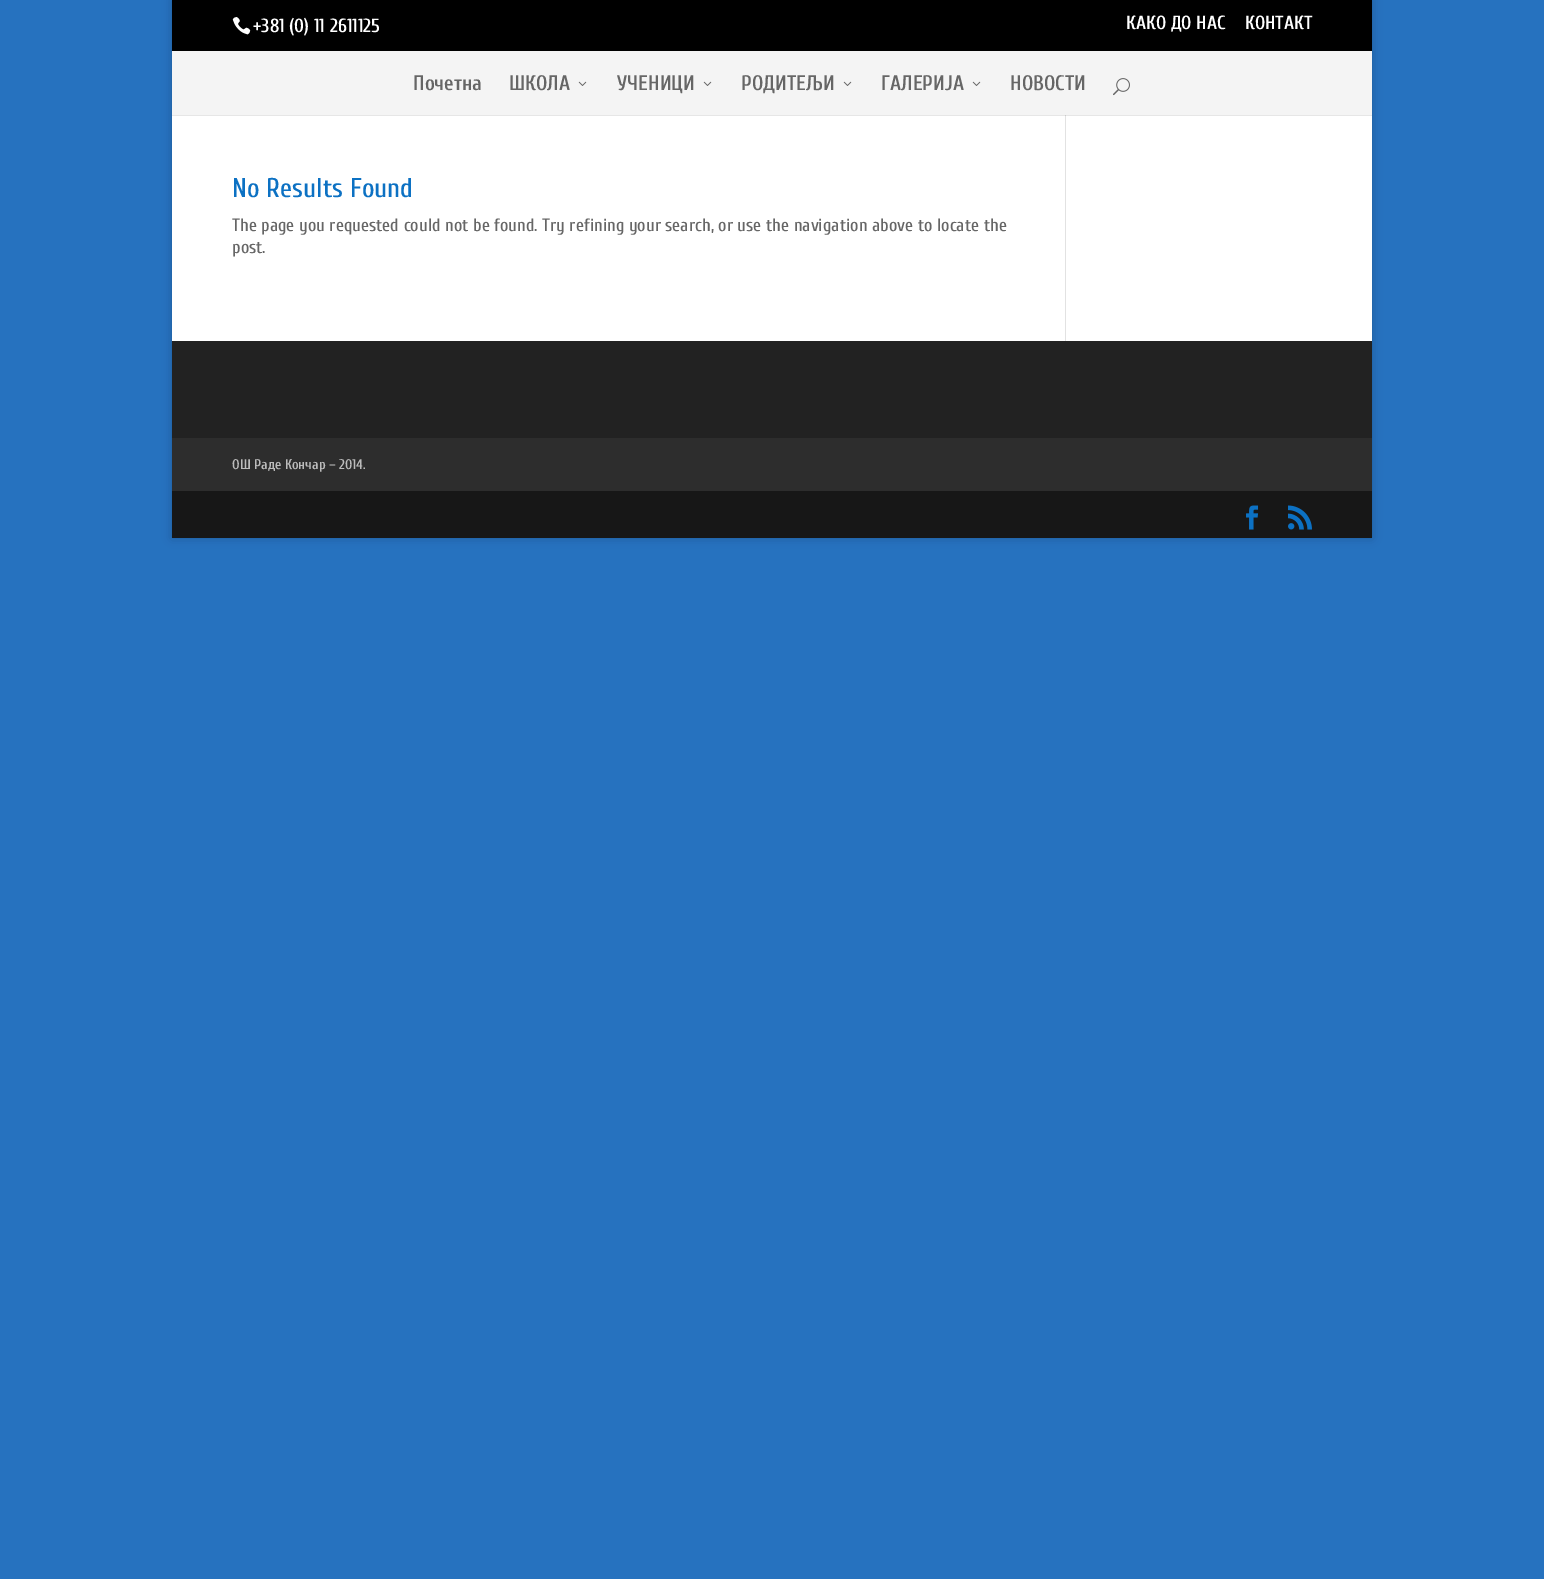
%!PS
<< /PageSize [1544 1579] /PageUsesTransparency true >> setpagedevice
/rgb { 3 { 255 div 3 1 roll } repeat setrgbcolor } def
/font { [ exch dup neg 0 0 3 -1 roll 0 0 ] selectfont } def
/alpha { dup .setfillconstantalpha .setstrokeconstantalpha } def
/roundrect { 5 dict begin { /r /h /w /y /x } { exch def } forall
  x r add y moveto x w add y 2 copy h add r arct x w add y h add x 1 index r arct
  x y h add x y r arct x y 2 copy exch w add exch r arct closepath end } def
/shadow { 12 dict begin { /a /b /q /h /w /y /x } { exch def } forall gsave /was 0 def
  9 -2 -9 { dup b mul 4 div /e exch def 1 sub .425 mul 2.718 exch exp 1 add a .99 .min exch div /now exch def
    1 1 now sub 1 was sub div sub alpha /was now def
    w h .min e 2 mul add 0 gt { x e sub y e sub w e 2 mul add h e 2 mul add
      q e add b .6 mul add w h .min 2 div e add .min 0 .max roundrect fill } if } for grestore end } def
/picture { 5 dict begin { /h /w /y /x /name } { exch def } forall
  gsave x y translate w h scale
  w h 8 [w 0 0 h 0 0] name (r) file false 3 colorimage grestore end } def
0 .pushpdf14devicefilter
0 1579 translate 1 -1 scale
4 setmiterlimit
38 114 191 rgb
0 0 1544 1579 rectfill
0 0 0 rgb
172 0 1200 538 0 5 0.2 shadow
172 0 1200 51 rectfill
(img/1.rgb) 232 17 19 18 picture
244 244 244 rgb
172 51 1200 64 rectfill
(img/2.rgb) 578 81 9 5 picture
(img/2.rgb) 703 81 9 5 picture
(img/2.rgb) 843 81 9 5 picture
(img/2.rgb) 972 81 9 5 picture
(img/3.rgb) 1113 78 17 18 picture
[
  [172 116 1200 225 255 255 255]
  [172 115 1200 1 230 230 230]
  [1065 115 1 226 226 226 226]
  [1065 115 1 1 203 203 203]
  [172 341 1200 97 34 34 34]
  [172 438 1200 53 45 45 45]
  [172 491 1200 47 23 23 23]
] { aload pop rgb rectfill } forall
(img/4.rgb) 1246 505 13 25 picture
(img/5.rgb) 1288 505 24 25 picture
/Cuprum-SemiBold 19 font
255 255 255 rgb
[
  [(+381 \(0\) 11 2611125) 253 32]
  [(КАКО ДО НАС) 1126 29]
  [(КОНТАКТ) 1245 29]
] { aload pop moveto show } forall
/Cuprum-SemiBold 21 font
102 102 102 rgb
[
  [(Почетна) 413 90]
  [(ШКОЛА) 509 90]
  [(УЧЕНИЦИ) 617 90]
  [(РОДИТЕЉИ) 741 90]
  [(ГАЛЕРИЈА) 881 90]
  [(НОВОСТИ) 1010 90]
] { aload pop moveto show } forall
/Cuprum-Medium 27 font
12 113 195 rgb
232 197 moveto (No Results Found) show
/Cuprum-Medium 18 font
102 102 102 rgb
232 231 moveto (The page you requested could not be found. Try refining your search, or use the navigation above to locate the) show
232 253 moveto (post.) show
/Cuprum-SemiBold 14 font
187 187 187 rgb
232 469 moveto (ОШ Раде Кончар – 2014.) show
.poppdf14devicefilter showpage
